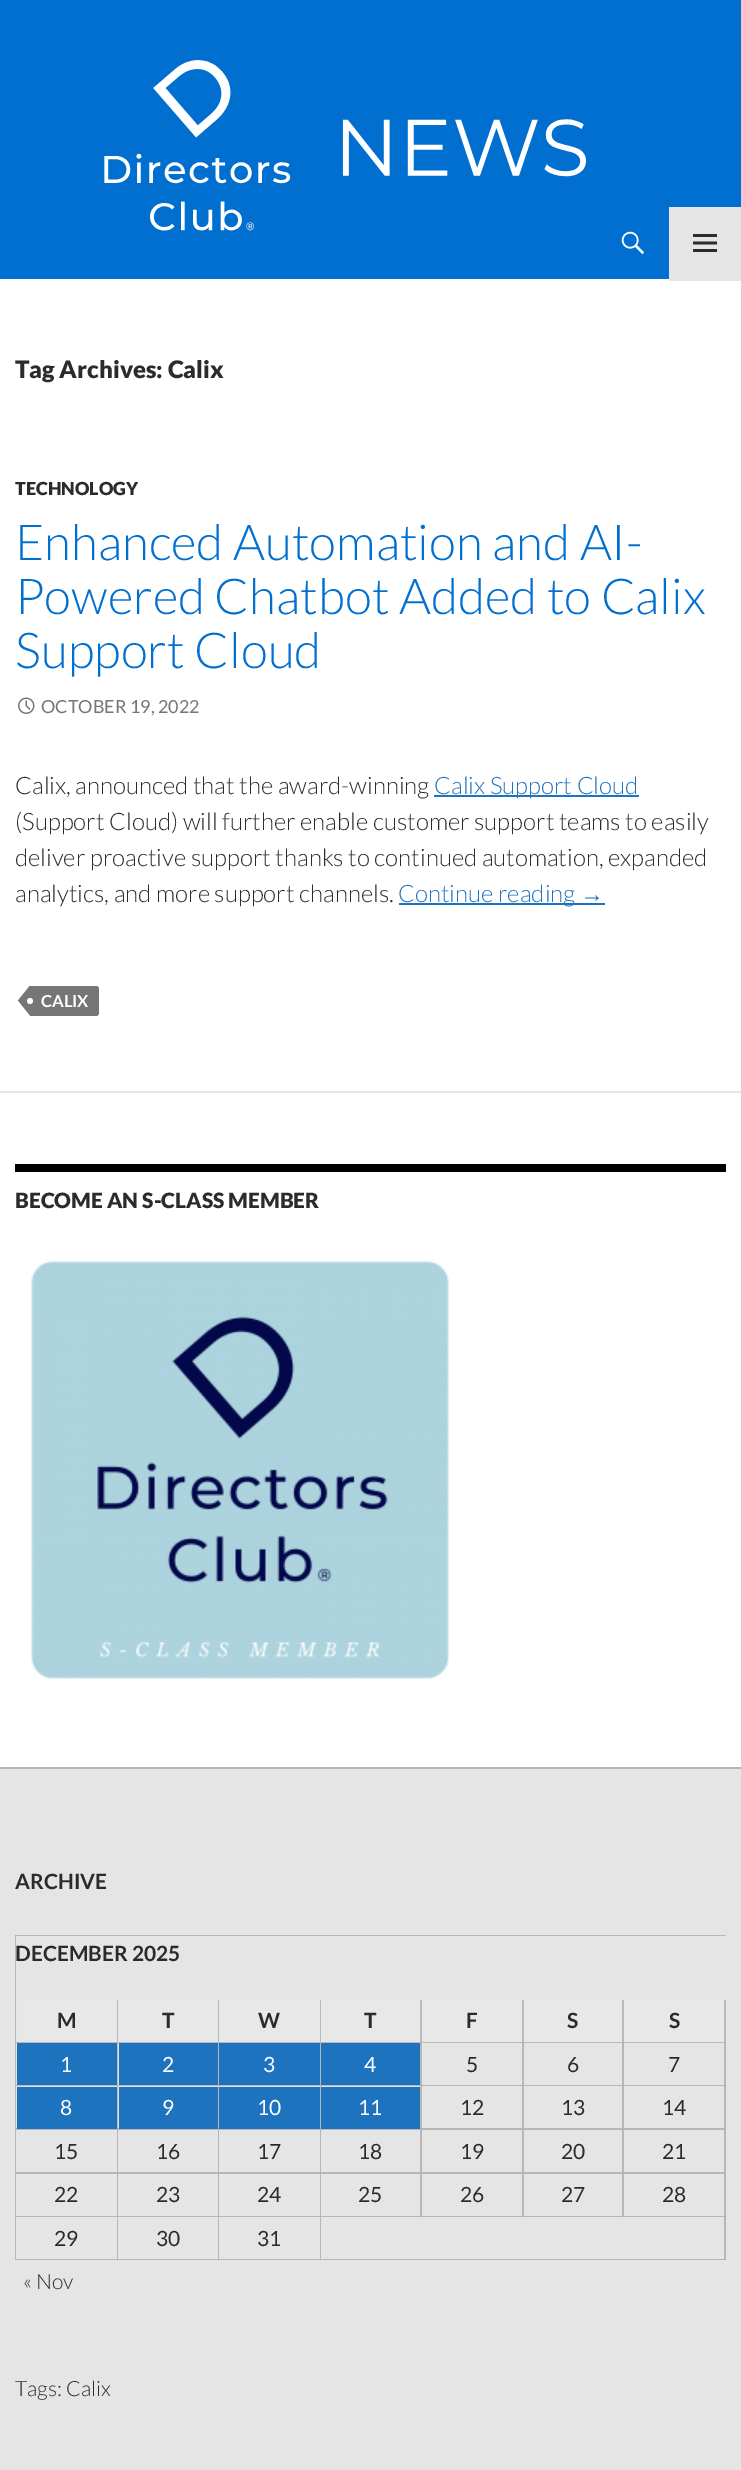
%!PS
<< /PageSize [741 2470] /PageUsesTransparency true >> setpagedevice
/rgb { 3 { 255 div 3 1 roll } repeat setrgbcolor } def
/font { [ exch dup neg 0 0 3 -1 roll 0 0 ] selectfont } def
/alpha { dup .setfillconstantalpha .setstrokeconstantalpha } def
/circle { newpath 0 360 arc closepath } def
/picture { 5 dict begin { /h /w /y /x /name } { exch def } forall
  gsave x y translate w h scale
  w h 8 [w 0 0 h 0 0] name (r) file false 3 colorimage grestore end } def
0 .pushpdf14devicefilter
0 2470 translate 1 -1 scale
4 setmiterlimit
255 255 255 rgb
0 0 741 2470 rectfill
1 111 208 rgb
0 0 741 279 rectfill
(img/1.rgb) 104 60 482 171 picture
(img/2.rgb) 621 231 24 24 picture
229 229 229 rgb
669 207 72 74 rectfill
(img/3.rgb) 693 234 24 18 picture
(img/4.rgb) 18 697 17 17 picture
30 115 190 rgb
434 795 205 2 rectfill
399 903 206 2 rectfill
118 118 118 rgb
30 986 moveto 96 986 lineto 97.5 986 99 987.5 99 989 curveto 99 1013 lineto 99 1014.5 97.5 1016 96 1016 curveto 30 1016 lineto closepath fill
30 985.5 moveto 30 1015.5 lineto 18 1000.5 lineto closepath fill
255 255 255 rgb
30 1001 3 circle fill
230 230 230 rgb
0 1091 741 2 rectfill
0 0 0 rgb
15 1164 711 8 rectfill
(img/5.rgb) 31 1261 418 418 picture
229 229 229 rgb
0 1769 741 701 rectfill
183 183 183 rgb
0 1767 741 2 rectfill
15 1935 moveto 726 1935 lineto 726 1936 lineto 16 1936 lineto closepath fill
0.2 alpha
0 0 0 rgb
15 2260 moveto 15 1935 lineto 16 1936 lineto 16 2260 lineto closepath fill
1 alpha
232 232 232 rgb
17 2000 709 43 rectfill
186 186 186 rgb
118 2000 moveto 118 2043 lineto 117 2042 lineto 117 2000 lineto closepath fill
0.2 alpha
0 0 0 rgb
118 2043 moveto 16 2043 lineto 16 2042 lineto 117 2042 lineto closepath fill
1 alpha
186 186 186 rgb
219 2000 moveto 219 2043 lineto 218 2042 lineto 218 2000 lineto closepath fill
0.2 alpha
0 0 0 rgb
219 2043 moveto 118 2043 lineto 118 2042 lineto 218 2042 lineto closepath fill
1 alpha
186 186 186 rgb
321 2000 moveto 321 2043 lineto 320 2042 lineto 320 2000 lineto closepath fill
0.2 alpha
0 0 0 rgb
321 2043 moveto 219 2043 lineto 219 2042 lineto 320 2042 lineto closepath fill
1 alpha
186 186 186 rgb
422 2000 moveto 422 2043 lineto 420 2042 lineto 420 2000 lineto closepath fill
0.2 alpha
0 0 0 rgb
422 2043 moveto 321 2043 lineto 321 2042 lineto 420 2042 lineto closepath fill
1 alpha
186 186 186 rgb
524 2000 moveto 524 2043 lineto 522 2042 lineto 522 2000 lineto closepath fill
0.2 alpha
0 0 0 rgb
524 2043 moveto 422 2043 lineto 422 2042 lineto 522 2042 lineto closepath fill
1 alpha
186 186 186 rgb
624 2000 moveto 624 2043 lineto 622 2042 lineto 622 2000 lineto closepath fill
0.2 alpha
0 0 0 rgb
624 2043 moveto 524 2043 lineto 524 2042 lineto 622 2042 lineto closepath fill
1 alpha
186 186 186 rgb
726 2000 moveto 726 2043 lineto 724 2042 lineto 724 2000 lineto closepath fill
0.2 alpha
0 0 0 rgb
726 2043 moveto 624 2043 lineto 624 2042 lineto 724 2042 lineto closepath fill
1 alpha
183 183 183 rgb
118 2043 moveto 118 2086 lineto 117 2085 lineto 117 2043 lineto closepath fill
0.2 alpha
0 0 0 rgb
118 2086 moveto 16 2086 lineto 16 2085 lineto 117 2085 lineto closepath fill
1 alpha
30 115 190 rgb
17 2043 100 42 rectfill
183 183 183 rgb
219 2043 moveto 219 2086 lineto 218 2085 lineto 218 2043 lineto closepath fill
0.2 alpha
0 0 0 rgb
219 2086 moveto 118 2086 lineto 118 2085 lineto 218 2085 lineto closepath fill
1 alpha
30 115 190 rgb
119 2043 99 42 rectfill
183 183 183 rgb
321 2043 moveto 321 2086 lineto 320 2085 lineto 320 2043 lineto closepath fill
0.2 alpha
0 0 0 rgb
321 2086 moveto 219 2086 lineto 219 2085 lineto 320 2085 lineto closepath fill
1 alpha
30 115 190 rgb
219 2043 101 42 rectfill
183 183 183 rgb
422 2043 moveto 422 2086 lineto 420 2085 lineto 420 2043 lineto closepath fill
0.2 alpha
0 0 0 rgb
422 2086 moveto 321 2086 lineto 321 2085 lineto 420 2085 lineto closepath fill
1 alpha
30 115 190 rgb
321 2043 99 42 rectfill
183 183 183 rgb
524 2043 moveto 524 2086 lineto 522 2085 lineto 522 2043 lineto closepath fill
0.2 alpha
0 0 0 rgb
524 2086 moveto 422 2086 lineto 422 2085 lineto 522 2085 lineto closepath fill
1 alpha
183 183 183 rgb
624 2043 moveto 624 2086 lineto 622 2085 lineto 622 2043 lineto closepath fill
0.2 alpha
0 0 0 rgb
624 2086 moveto 524 2086 lineto 524 2085 lineto 622 2085 lineto closepath fill
1 alpha
183 183 183 rgb
726 2043 moveto 726 2086 lineto 724 2085 lineto 724 2043 lineto closepath fill
0.2 alpha
0 0 0 rgb
726 2086 moveto 624 2086 lineto 624 2085 lineto 724 2085 lineto closepath fill
1 alpha
183 183 183 rgb
118 2086 moveto 118 2130 lineto 117 2128 lineto 117 2086 lineto closepath fill
0.2 alpha
0 0 0 rgb
118 2130 moveto 16 2130 lineto 16 2128 lineto 117 2128 lineto closepath fill
1 alpha
30 115 190 rgb
17 2087 100 42 rectfill
183 183 183 rgb
219 2086 moveto 219 2130 lineto 218 2128 lineto 218 2086 lineto closepath fill
0.2 alpha
0 0 0 rgb
219 2130 moveto 118 2130 lineto 118 2128 lineto 218 2128 lineto closepath fill
1 alpha
30 115 190 rgb
119 2087 99 42 rectfill
183 183 183 rgb
321 2086 moveto 321 2130 lineto 320 2128 lineto 320 2086 lineto closepath fill
0.2 alpha
0 0 0 rgb
321 2130 moveto 219 2130 lineto 219 2128 lineto 320 2128 lineto closepath fill
1 alpha
30 115 190 rgb
219 2087 101 42 rectfill
183 183 183 rgb
422 2086 moveto 422 2130 lineto 420 2128 lineto 420 2086 lineto closepath fill
0.2 alpha
0 0 0 rgb
422 2130 moveto 321 2130 lineto 321 2128 lineto 420 2128 lineto closepath fill
1 alpha
30 115 190 rgb
321 2087 99 42 rectfill
183 183 183 rgb
524 2086 moveto 524 2130 lineto 522 2128 lineto 522 2086 lineto closepath fill
0.2 alpha
0 0 0 rgb
524 2130 moveto 422 2130 lineto 422 2128 lineto 522 2128 lineto closepath fill
1 alpha
183 183 183 rgb
624 2086 moveto 624 2130 lineto 622 2128 lineto 622 2086 lineto closepath fill
0.2 alpha
0 0 0 rgb
624 2130 moveto 524 2130 lineto 524 2128 lineto 622 2128 lineto closepath fill
1 alpha
183 183 183 rgb
726 2086 moveto 726 2130 lineto 724 2128 lineto 724 2086 lineto closepath fill
0.2 alpha
0 0 0 rgb
726 2130 moveto 624 2130 lineto 624 2128 lineto 724 2128 lineto closepath fill
1 alpha
183 183 183 rgb
118 2130 moveto 118 2174 lineto 117 2172 lineto 117 2130 lineto closepath fill
0.2 alpha
0 0 0 rgb
118 2174 moveto 16 2174 lineto 16 2172 lineto 117 2172 lineto closepath fill
1 alpha
183 183 183 rgb
219 2130 moveto 219 2174 lineto 218 2172 lineto 218 2130 lineto closepath fill
0.2 alpha
0 0 0 rgb
219 2174 moveto 118 2174 lineto 118 2172 lineto 218 2172 lineto closepath fill
1 alpha
183 183 183 rgb
321 2130 moveto 321 2174 lineto 320 2172 lineto 320 2130 lineto closepath fill
0.2 alpha
0 0 0 rgb
321 2174 moveto 219 2174 lineto 219 2172 lineto 320 2172 lineto closepath fill
1 alpha
183 183 183 rgb
422 2130 moveto 422 2174 lineto 420 2172 lineto 420 2130 lineto closepath fill
0.2 alpha
0 0 0 rgb
422 2174 moveto 321 2174 lineto 321 2172 lineto 420 2172 lineto closepath fill
1 alpha
183 183 183 rgb
524 2130 moveto 524 2174 lineto 522 2172 lineto 522 2130 lineto closepath fill
0.2 alpha
0 0 0 rgb
524 2174 moveto 422 2174 lineto 422 2172 lineto 522 2172 lineto closepath fill
1 alpha
183 183 183 rgb
624 2130 moveto 624 2174 lineto 622 2172 lineto 622 2130 lineto closepath fill
0.2 alpha
0 0 0 rgb
624 2174 moveto 524 2174 lineto 524 2172 lineto 622 2172 lineto closepath fill
1 alpha
183 183 183 rgb
726 2130 moveto 726 2174 lineto 724 2172 lineto 724 2130 lineto closepath fill
0.2 alpha
0 0 0 rgb
726 2174 moveto 624 2174 lineto 624 2172 lineto 724 2172 lineto closepath fill
1 alpha
183 183 183 rgb
118 2174 moveto 118 2217 lineto 117 2216 lineto 117 2174 lineto closepath fill
0.2 alpha
0 0 0 rgb
118 2217 moveto 16 2217 lineto 16 2216 lineto 117 2216 lineto closepath fill
1 alpha
183 183 183 rgb
219 2174 moveto 219 2217 lineto 218 2216 lineto 218 2174 lineto closepath fill
0.2 alpha
0 0 0 rgb
219 2217 moveto 118 2217 lineto 118 2216 lineto 218 2216 lineto closepath fill
1 alpha
183 183 183 rgb
321 2174 moveto 321 2217 lineto 320 2216 lineto 320 2174 lineto closepath fill
0.2 alpha
0 0 0 rgb
321 2217 moveto 219 2217 lineto 219 2216 lineto 320 2216 lineto closepath fill
1 alpha
183 183 183 rgb
422 2174 moveto 422 2217 lineto 420 2216 lineto 420 2174 lineto closepath fill
0.2 alpha
0 0 0 rgb
422 2217 moveto 321 2217 lineto 321 2216 lineto 420 2216 lineto closepath fill
1 alpha
183 183 183 rgb
524 2174 moveto 524 2217 lineto 522 2216 lineto 522 2174 lineto closepath fill
0.2 alpha
0 0 0 rgb
524 2217 moveto 422 2217 lineto 422 2216 lineto 522 2216 lineto closepath fill
1 alpha
183 183 183 rgb
624 2174 moveto 624 2217 lineto 622 2216 lineto 622 2174 lineto closepath fill
0.2 alpha
0 0 0 rgb
624 2217 moveto 524 2217 lineto 524 2216 lineto 622 2216 lineto closepath fill
1 alpha
183 183 183 rgb
726 2174 moveto 726 2217 lineto 724 2216 lineto 724 2174 lineto closepath fill
0.2 alpha
0 0 0 rgb
726 2217 moveto 624 2217 lineto 624 2216 lineto 724 2216 lineto closepath fill
1 alpha
183 183 183 rgb
118 2217 moveto 118 2260 lineto 117 2259 lineto 117 2217 lineto closepath fill
0.2 alpha
0 0 0 rgb
118 2260 moveto 16 2260 lineto 16 2259 lineto 117 2259 lineto closepath fill
1 alpha
183 183 183 rgb
219 2217 moveto 219 2260 lineto 218 2259 lineto 218 2217 lineto closepath fill
0.2 alpha
0 0 0 rgb
219 2260 moveto 118 2260 lineto 118 2259 lineto 218 2259 lineto closepath fill
1 alpha
183 183 183 rgb
321 2217 moveto 321 2260 lineto 320 2259 lineto 320 2217 lineto closepath fill
0.2 alpha
0 0 0 rgb
321 2260 moveto 219 2260 lineto 219 2259 lineto 320 2259 lineto closepath fill
1 alpha
183 183 183 rgb
726 2217 moveto 726 2260 lineto 724 2259 lineto 724 2217 lineto closepath fill
0.2 alpha
0 0 0 rgb
726 2260 moveto 321 2260 lineto 321 2259 lineto 724 2259 lineto closepath fill
/Lato-Black 24 font
1 alpha
43 43 43 rgb
15 378 moveto (Tag Archives: Calix) show
/Lato-Black 18 font
15 495 moveto (TECHNOLOGY) show
/Lato-Light 49.5 font
1 111 208 rgb
[
  [(Enhanced Automation and AI-) 15 560]
  [(Powered Chatbot Added to Calix) 15 614]
  [(Support Cloud) 15 668]
] { aload pop moveto show } forall
/Lato-Regular 18 font
118 118 118 rgb
41 713 moveto (OCTOBER 19, 2022) show
/Lato-Light 24 font
43 43 43 rgb
15 794 moveto (Calix, announced that the award-winning) show
30 115 190 rgb
434 794 moveto (Calix Support Cloud) show
43 43 43 rgb
[
  [(\(Support Cloud\) will further enable customer support teams to easily) 15 830]
  [(deliver proactive support thanks to continued automation, expanded) 15 866]
  [(analytics, and more support channels.) 15 902]
] { aload pop moveto show } forall
30 115 190 rgb
398 902 moveto (Continue reading) show
/LiberationSans-Regular 24 font
580 902 moveto (→) show
/Lato-Bold 16.5 font
255 255 255 rgb
41 1007 moveto (CALIX) show
/Lato-Black 21 font
43 43 43 rgb
15 1208 moveto (BECOME AN S-CLASS MEMBER) show
/Lato-Bold 21 font
[
  [(ARCHIVE) 15 1889]
  [(DECEMBER 2025) 15 1961]
  [(M) 57 2028]
  [(T) 162 2028]
  [(W) 258 2028]
  [(T) 364 2028]
  [(F) 466 2028]
  [(S) 567 2028]
  [(S) 669 2028]
] { aload pop moveto show } forall
/Lato-Regular 21 font
255 255 255 rgb
[
  [(1) 60 2072]
  [(2) 162 2072]
  [(3) 263 2072]
  [(4) 364 2072]
] { aload pop moveto show } forall
43 43 43 rgb
[
  [(5) 466 2072]
  [(6) 567 2072]
  [(7) 668 2072]
] { aload pop moveto show } forall
255 255 255 rgb
[
  [(8) 60 2115]
  [(9) 162 2115]
  [(10) 257 2115]
  [(11) 358 2115]
] { aload pop moveto show } forall
43 43 43 rgb
[
  [(12) 460 2115]
  [(13) 561 2115]
  [(14) 662 2115]
  [(15) 54 2159]
  [(16) 156 2159]
  [(17) 257 2159]
  [(18) 358 2159]
  [(19) 460 2159]
  [(20) 561 2159]
  [(21) 662 2159]
  [(22) 54 2202]
  [(23) 156 2202]
  [(24) 257 2202]
  [(25) 358 2202]
  [(26) 460 2202]
  [(27) 561 2202]
  [(28) 662 2202]
  [(29) 54 2246]
  [(30) 156 2246]
  [(31) 257 2246]
] { aload pop moveto show } forall
/Lato-Light 21 font
23 2289 moveto (« Nov) show
15 2396 moveto (Tags: Calix) show
.poppdf14devicefilter showpage
